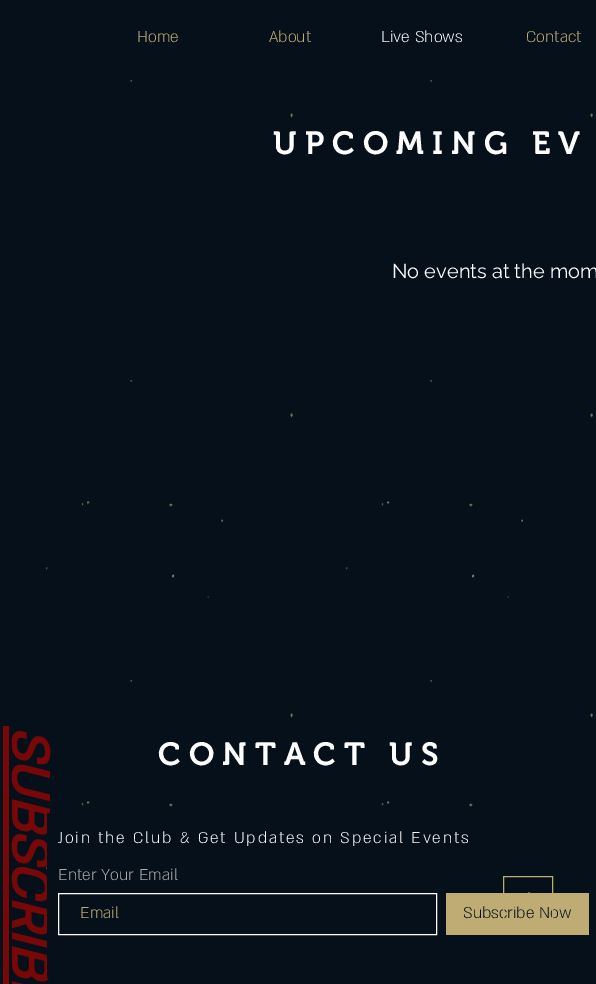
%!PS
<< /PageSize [596 984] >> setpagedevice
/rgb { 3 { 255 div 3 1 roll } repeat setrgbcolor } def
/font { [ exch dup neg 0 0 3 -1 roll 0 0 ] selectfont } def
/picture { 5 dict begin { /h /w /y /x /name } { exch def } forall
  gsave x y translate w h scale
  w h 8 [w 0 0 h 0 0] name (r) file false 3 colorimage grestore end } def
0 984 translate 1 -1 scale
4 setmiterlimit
6 16 27 rgb
0 0 596 984 rectfill
(img/1.rgb) 46 80 547 790 picture
46 201 477 98 rectfill
120 7 7 rgb
3 726 6 258 rectfill
/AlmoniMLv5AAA-Light 18 font
190 172 116 rgb
137 42 moveto (Home) show
269 42 moveto (About) show
255 255 255 rgb
381 42 moveto (Live Shows) show
190 172 116 rgb
526 42 moveto (Contact) show
/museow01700-SemiBold 32 font
255 255 255 rgb
273 154 moveto 8 0 (UPCOMING EV) ashow
/Raleway-Regular 20 font
392 278 moveto (No events at the mom) show
/AlmoniMLv5AAA-BoldItalic 60 font
120 7 7 rgb
gsave 12 726 translate 90 rotate 0 0 moveto (SUBSCRIBE) show grestore
/museow01700-SemiBold 32 font
255 255 255 rgb
158 765 moveto 8 0 (CONTACT US) ashow
6 16 27 rgb
47 813 476 165 rectfill
/AlmoniMLv5AAA-Light 18 font
255 255 255 rgb
58 843 moveto 1.8 0 (Join the Club & Get Updates on Special Events) ashow
171 171 171 rgb
58 880 moveto (Enter Your Email) show
255 255 255 rgb
58.5 893.5 378 41 rectstroke
190 172 116 rgb
80 918 moveto (Email) show
446 893 143 42 rectfill
6 16 27 rgb
463 918 moveto (Subscribe Now) show
190 172 116 rgb
503.5 876.5 49 48 rectstroke
514 907 moveto 515.5 908 lineto 529 895 lineto 542.5 908 lineto 544 907 lineto 529 892 lineto closepath fill
showpage
